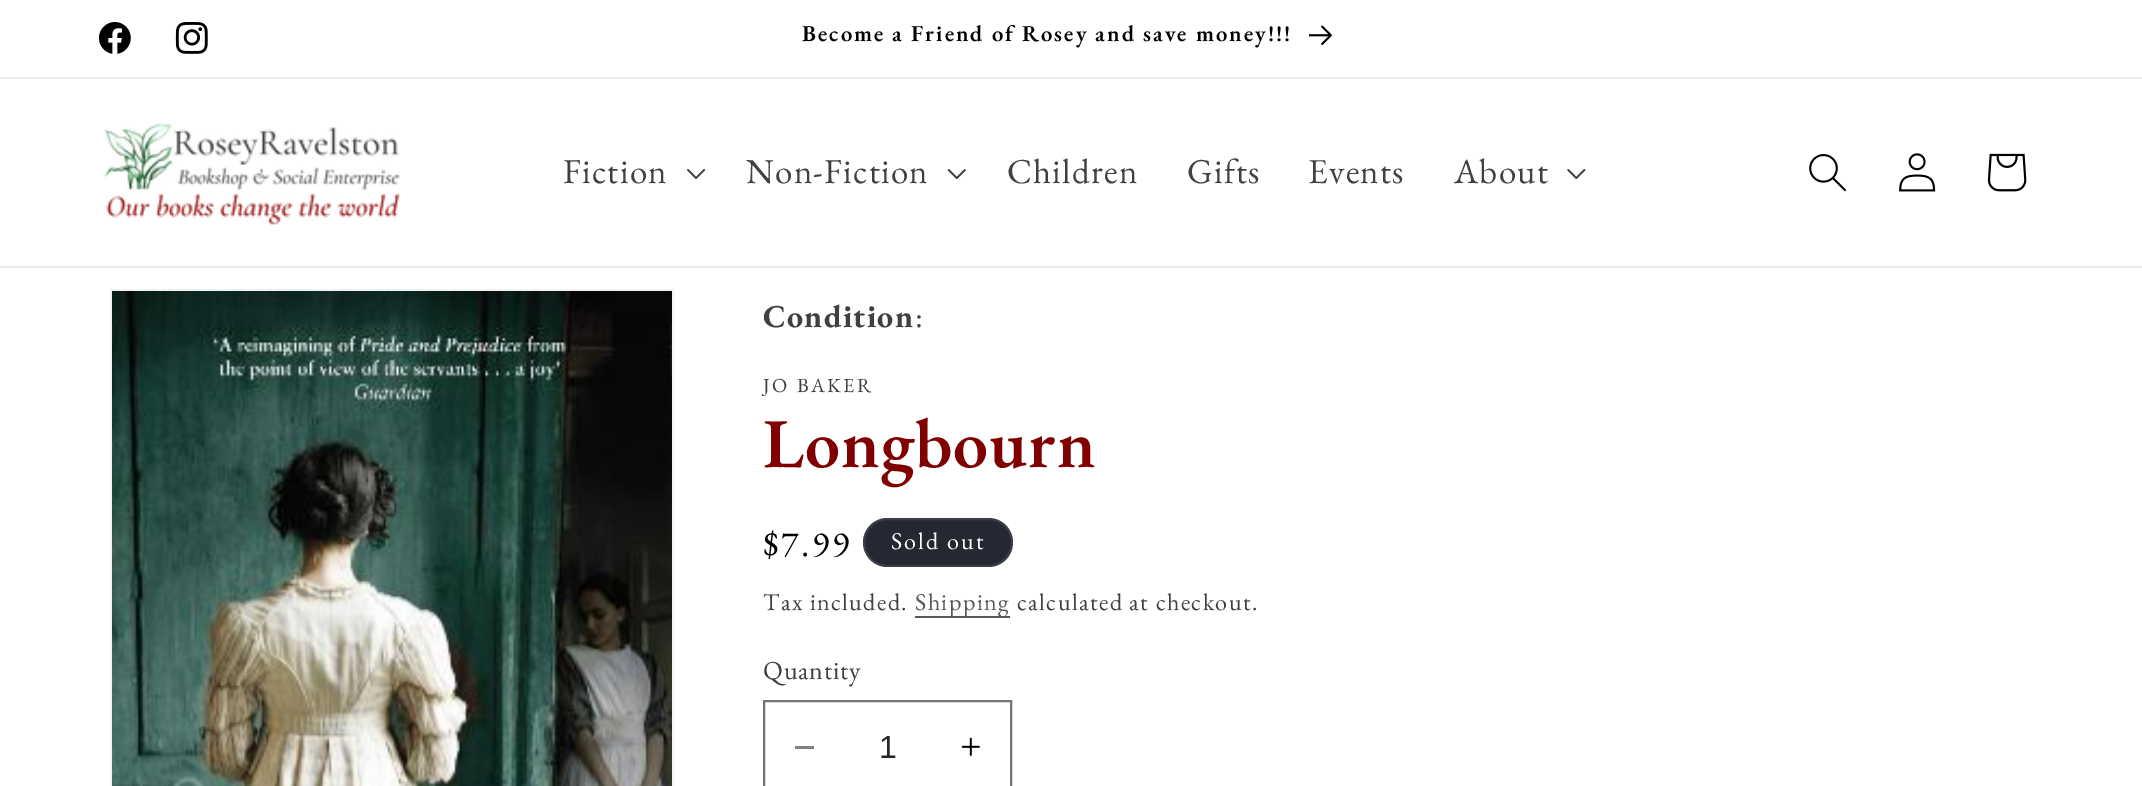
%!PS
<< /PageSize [2142 786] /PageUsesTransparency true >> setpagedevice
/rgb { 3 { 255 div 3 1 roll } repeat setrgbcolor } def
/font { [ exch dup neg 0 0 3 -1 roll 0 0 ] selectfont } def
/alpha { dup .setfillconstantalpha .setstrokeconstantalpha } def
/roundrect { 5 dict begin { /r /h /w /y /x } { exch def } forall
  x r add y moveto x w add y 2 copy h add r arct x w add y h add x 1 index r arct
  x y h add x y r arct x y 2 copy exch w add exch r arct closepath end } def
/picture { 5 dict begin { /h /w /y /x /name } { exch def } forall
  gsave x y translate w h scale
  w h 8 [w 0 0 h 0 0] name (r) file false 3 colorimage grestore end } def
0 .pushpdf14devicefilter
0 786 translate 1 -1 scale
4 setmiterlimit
255 255 255 rgb
0 0 2142 786 rectfill
235 235 235 rgb
0 77 2142 2 rectfill
(img/1.rgb) 98 22 33 32 picture
(img/2.rgb) 175 22 33 32 picture
(img/3.rgb) 1309 25 23 20 picture
0 266 2142 2 rectfill
(img/4.rgb) 104 122 296 103 picture
(img/5.rgb) 687 169 18 10 picture
(img/6.rgb) 947 169 19 10 picture
(img/7.rgb) 1567 169 19 10 picture
(img/8.rgb) 1809 154 37 38 picture
(img/9.rgb) 1899 153 37 39 picture
(img/10.rgb) 1987 153 40 39 picture
242 242 242 rgb
2 setlinewidth
111 290 562 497 rectstroke
(img/11.rgb) 112 291 560 495 picture
36 40 51 rgb
863 518 150 49 24.5 roundrect fill
0.1 alpha
255 255 255 rgb
864 519 148 47 23.5 roundrect stroke
1 alpha
88 88 88 rgb
915 616 95 2 rectfill
128 128 128 rgb
795 746 19 3 rectfill
(img/12.rgb) 961 737 19 19 picture
115 115 115 rgb
764 701 247 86 rectstroke
/EBGaramond-SemiBold 22.75 font
0 0 0 rgb
802 41 moveto 2 0 (Become a Friend of Rosey and save money!!!) ashow
/EBGaramond-Regular 35 font
64 64 64 rgb
563 183 moveto 1.25 0 (Fiction) ashow
746 183 moveto 1.25 0 (Non-Fiction) ashow
1007 183 moveto 1.25 0 (Children) ashow
1187 183 moveto 1.25 0 (Gifts) ashow
1308 183 moveto 1.25 0 (Events) ashow
1454 183 moveto 1.25 0 (About) ashow
/EBGaramond-Bold 32 font
763 327 moveto 1.25 0 (Condition) ashow
/EBGaramond-Regular 32 font
915 327 moveto 1.25 0 (:) ashow
/EBGaramond-Regular 20 font
763 392 moveto 2.5 0 (JO BAKER) ashow
/EBGaramond-SemiBold 70 font
128 0 0 rgb
763 467 moveto 1 0 (Longbourn) ashow
/EBGaramond-Regular 36 font
0 0 0 rgb
763 556 moveto 2.5 0 ($7.99) ashow
/EBGaramond-Regular 24.1 font
255 255 255 rgb
891 549 moveto 2 0 (Sold out) ashow
64 64 64 rgb
763 610 moveto 1.4 0 (Tax included.) ashow
87 87 87 rgb
915 610 moveto 1.4 0 (Shipping) ashow
64 64 64 rgb
1017 610 moveto 1.4 0 (calculated at checkout.) ashow
/EBGaramond-Regular 26 font
763 679 moveto 0.75 0 (Quantity) ashow
/LiberationSans-Regular 32 font
38 38 38 rgb
879 758 moveto (1) show
.poppdf14devicefilter showpage
